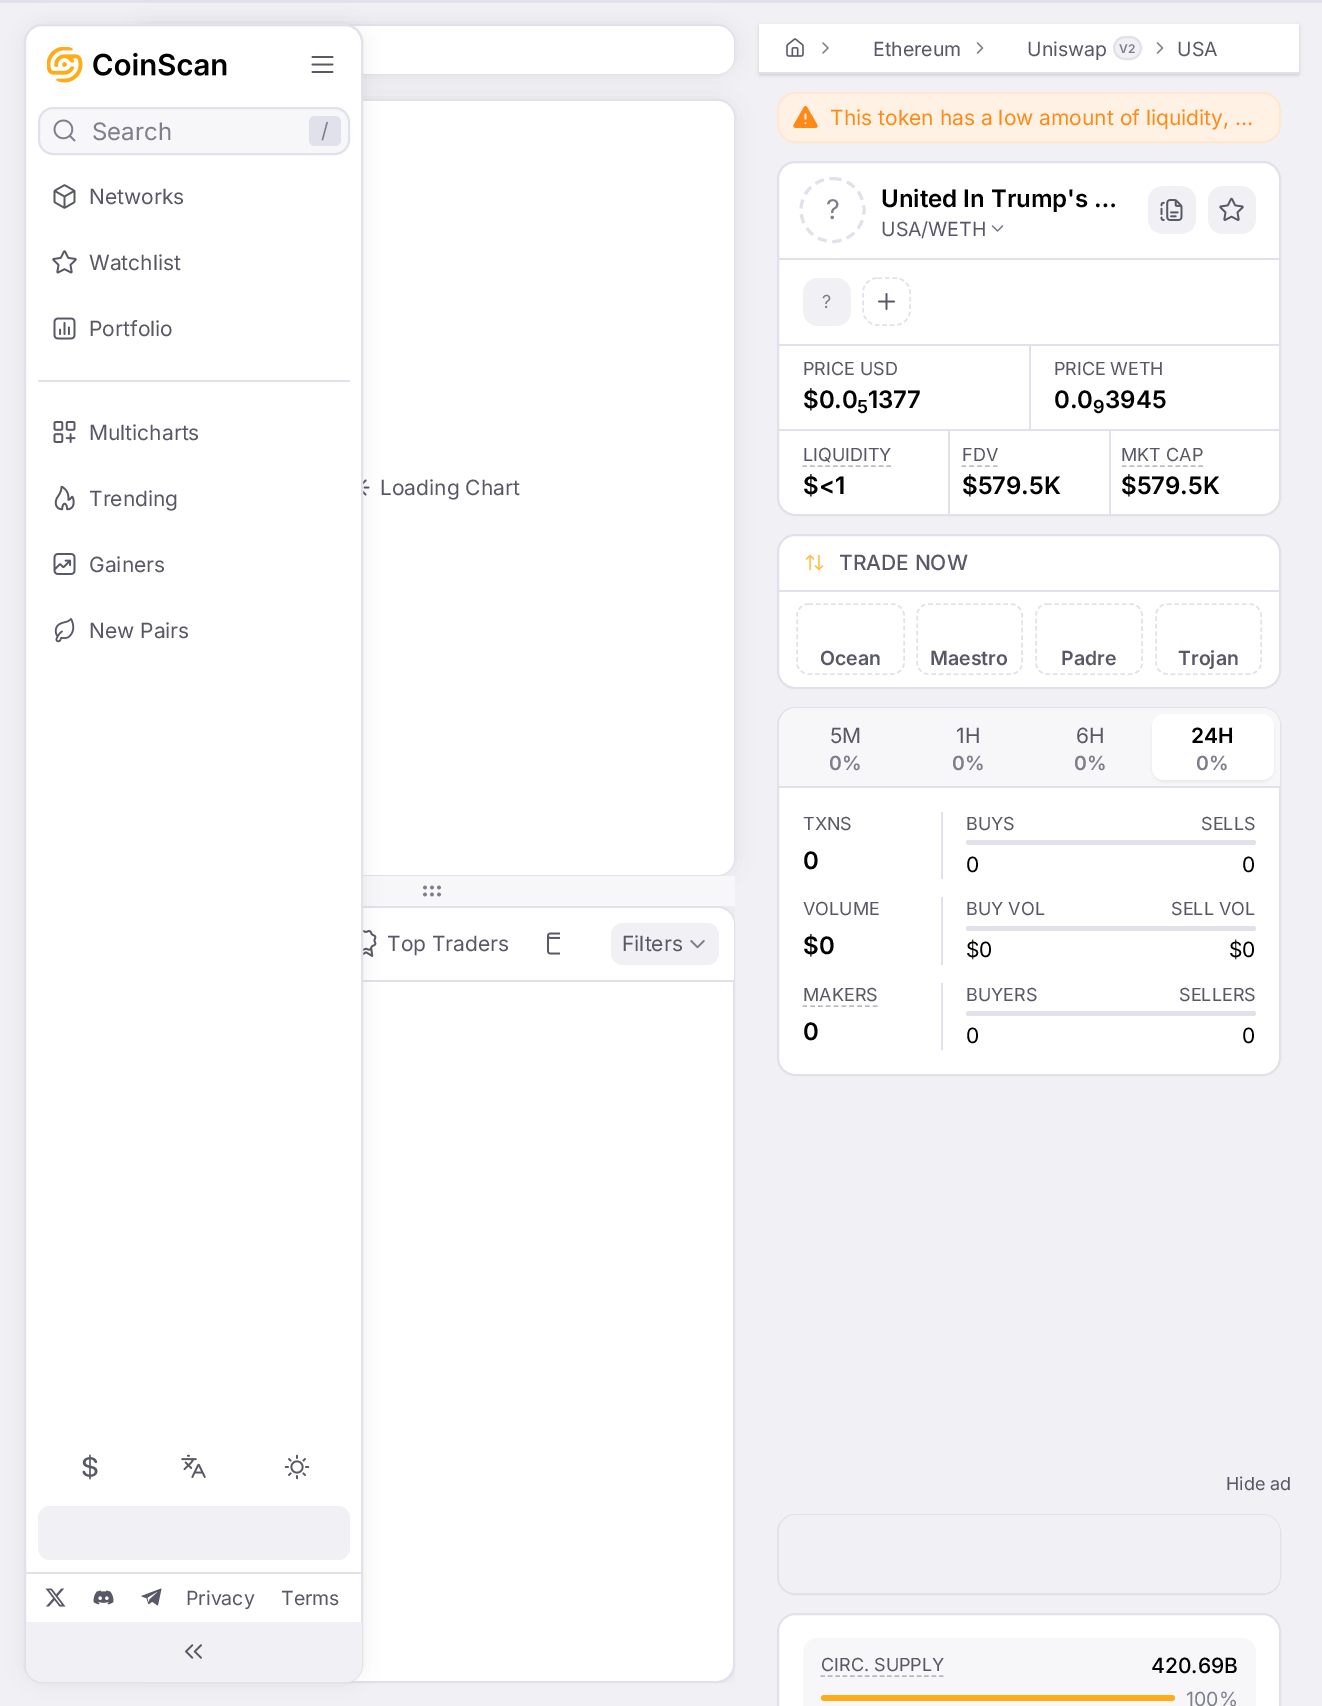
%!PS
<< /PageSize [1322 1706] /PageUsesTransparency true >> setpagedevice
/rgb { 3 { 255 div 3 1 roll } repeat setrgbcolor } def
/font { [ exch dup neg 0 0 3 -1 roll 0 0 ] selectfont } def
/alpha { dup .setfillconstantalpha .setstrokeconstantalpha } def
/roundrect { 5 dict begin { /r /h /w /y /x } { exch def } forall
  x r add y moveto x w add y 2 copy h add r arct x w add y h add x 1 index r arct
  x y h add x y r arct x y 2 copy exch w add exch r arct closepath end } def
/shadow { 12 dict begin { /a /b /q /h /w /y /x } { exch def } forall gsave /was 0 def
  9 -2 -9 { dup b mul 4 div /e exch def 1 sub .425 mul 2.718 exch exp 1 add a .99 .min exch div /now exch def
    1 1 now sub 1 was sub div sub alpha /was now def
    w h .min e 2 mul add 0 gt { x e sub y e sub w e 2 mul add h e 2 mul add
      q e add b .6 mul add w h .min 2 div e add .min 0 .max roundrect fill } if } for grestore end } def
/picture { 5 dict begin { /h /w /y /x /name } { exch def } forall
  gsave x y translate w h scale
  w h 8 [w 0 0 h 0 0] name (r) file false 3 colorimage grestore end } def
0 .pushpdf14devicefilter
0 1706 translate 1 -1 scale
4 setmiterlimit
240 240 245 rgb
0 0 1322 1706 rectfill
0 0 0 rgb
134 29 597 42 14 10.5 0.1 shadow
225 225 235 rgb
2 setlinewidth
130 25 604 49 17 roundrect stroke
255 255 255 rgb
131 26 603 48 17 roundrect fill
0 0 0 rgb
134 104 597 768 14 10.5 0.1 shadow
225 225 235 rgb
130 100 604 775 17 roundrect stroke
255 255 255 rgb
131 101 603 774 17 roundrect fill
(img/19.rgb) 363 479 7 17 picture
gsave
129 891 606 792 rectclip
0 0 0 rgb
134 911 597 768 14 10.5 0.1 shadow
grestore
247 247 250 rgb
363 876 372 30 rectfill
255 255 255 rgb
130 907 604 775 17 roundrect gsave fill grestore
225 225 235 rgb
stroke
255 255 255 rgb
148 908 moveto 717 908 lineto 726.5 908 734 915.5 734 925 curveto 734 980 lineto 131 980 lineto 131 925 lineto 131 915.5 138.5 908 148 908 curveto closepath fill
225 225 235 rgb
363 980 371 2 rectfill
(img/21.rgb) 363 930 14 27 picture
0 0 0 rgb
29 29 330 1650 14 10.5 0.1 shadow
225 225 235 rgb
0 0 1322 3 rectfill
255 255 255 rgb
25 25 337 1657 17 roundrect gsave fill grestore
225 225 235 rgb
stroke
(img/1.rgb) 47 47 36 36 picture
(img/2.rgb) 93 52 134 24 picture
(img/3.rgb) 311 56 23 17 picture
247 247 250 rgb
39 108 310 46 14 roundrect gsave fill grestore
225 225 235 rgb
stroke
(img/4.rgb) 53 119 23 23 picture
309 116 32 30 6 roundrect fill
(img/5.rgb) 53 184 23 25 picture
(img/6.rgb) 52 250 25 24 picture
(img/7.rgb) 53 317 23 23 picture
38 380 312 2 1 roundrect fill
(img/8.rgb) 53 421 23 22 picture
(img/9.rgb) 54 485 21 26 picture
(img/10.rgb) 53 553 23 22 picture
(img/11.rgb) 54 618 21 25 picture
26 1572 336 2 rectfill
(img/12.rgb) 82 1454 16 26 picture
(img/13.rgb) 181 1454 25 24 picture
(img/14.rgb) 284 1454 26 26 picture
240 240 245 rgb
38 1506 312 54 12 roundrect fill
(img/15.rgb) 45 1588 21 19 picture
(img/16.rgb) 93 1590 21 15 picture
(img/17.rgb) 141 1588 21 18 picture
26 1622 moveto 362 1622 lineto 362 1665 lineto 362 1674.5 354.5 1682 345 1682 curveto 43 1682 lineto 33.5 1682 26 1674.5 26 1665 curveto closepath fill
(img/18.rgb) 185 1644 17 15 picture
(img/20.rgb) 423 885 18 12 picture
(img/22.rgb) 547 932 13 23 picture
611 923 108 42 12 roundrect fill
(img/23.rgb) 690 940 15 9 picture
0 0 0 rgb
761 27 537 47 0 1.5 0.1 shadow
759 26 540 49 0 2 0.1 shadow
255 255 255 rgb
759 24 540 48 rectfill
225 225 235 rgb
759 72 540 2 rectfill
(img/24.rgb) 786 38 18 19 picture
(img/25.rgb) 822 42 7 12 picture
(img/26.rgb) 976 42 8 12 picture
240 240 245 rgb
1114 37 27 22 11 roundrect gsave fill grestore
225 225 235 rgb
stroke
(img/26.rgb) 1156 42 8 12 picture
255 242 229 rgb
778 93 502 49 17 roundrect gsave fill grestore
255 231 209 rgb
stroke
(img/27.rgb) 793 106 25 22 picture
255 255 255 rgb
778 162 502 353 17 roundrect gsave fill grestore
225 225 235 rgb
stroke
(img/28.rgb) 991 225 13 7 picture
240 240 245 rgb
1148 186 48 48 15 roundrect fill
(img/29.rgb) 1160 199 23 22 picture
1208 186 48 48 15 roundrect fill
(img/30.rgb) 1219 197 25 24 picture
225 225 235 rgb
779 258 501 2 rectfill
240 240 245 rgb
803 278 48 48 15 roundrect fill
225 225 235 rgb
1.5 setlinewidth
[4.5 3] 0 setdash
877.5 278 moveto 895.5 278 lineto 903.5 278 910 284.5 910 292.5 curveto 910 310.5 lineto 910 318.5 903.5 325 895.5 325 curveto 877.5 325 lineto 869.5 325 863 318.5 863 310.5 curveto 863 292.5 lineto 863 284.5 869.5 278 877.5 278 curveto closepath stroke
(img/31.rgb) 878 293 17 17 picture
[
  [779 344 501 2 225 225 235]
  [1029 345 2 84 225 225 235]
  [779 429 501 2 225 225 235]
] { aload pop rgb rectfill } forall
188 188 194 rgb
[4.5 3.13] 0 setdash
802.5 466 moveto 891 466 lineto stroke
225 225 235 rgb
948 431 2 84 rectfill
188 188 194 rgb
[4.5 3.38] 0 setdash
961.5 466 moveto 997.5 466 lineto stroke
225 225 235 rgb
1109 431 2 84 rectfill
188 188 194 rgb
[4.5 3.15] 0 setdash
1122 466 moveto 1203 466 lineto stroke
255 255 255 rgb
778 535 502 153 17 roundrect gsave fill grestore
225 225 235 rgb
2 setlinewidth
[] 0 setdash
stroke
779 590 501 2 rectfill
(img/32.rgb) 805 554 19 17 picture
255 255 255 rgb
778 708 502 367 17 roundrect gsave fill grestore
225 225 235 rgb
stroke
247 247 250 rgb
796 708 moveto 1263 708 lineto 1272.5 708 1280 715.5 1280 725 curveto 1280 786 lineto 779 786 lineto 779 725 lineto 779 715.5 786.5 708 796 708 curveto closepath fill
225 225 235 rgb
779 786 501 2 rectfill
0 0 0 rgb
1152 716 122 66 12 1.5 0.05 shadow
255 255 255 rgb
1152 714 122 66 12 roundrect fill
225 225 235 rgb
941 812 2 67 rectfill
966 840 290 5 2.5 roundrect fill
941 897 2 68 rectfill
966 926 290 5 2.5 roundrect fill
188 188 194 rgb
1.5 setlinewidth
[4.5 3.33] 0 setdash
802.5 1006 moveto 877.5 1006 lineto stroke
225 225 235 rgb
941 983 2 67 rectfill
966 1011 290 5 2.5 roundrect fill
255 255 255 rgb
778 1515 502 79 17 roundrect gsave fill grestore
225 225 235 rgb
2 setlinewidth
[] 0 setdash
stroke
240 240 245 rgb
779 1515 501 78 17 roundrect fill
255 255 255 rgb
795 1613 moveto 1263 1613 lineto 1273 1613 1281 1621 1281 1631 curveto 1281 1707 lineto 777 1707 lineto 777 1631 lineto 777 1621 785 1613 795 1613 curveto closepath fill
225 225 235 rgb
778 1614 502 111 17 roundrect stroke
247 247 250 rgb
818 1638 moveto 1241 1638 lineto 1249.5 1638 1256 1644.5 1256 1653 curveto 1256 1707 lineto 803 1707 lineto 803 1653 lineto 803 1644.5 809.5 1638 818 1638 curveto closepath fill
183 183 191 rgb
1.5 setlinewidth
[4.5 2.91] 0 setdash
820.5 1676 moveto 943.5 1676 lineto stroke
255 172 23 rgb
821 1695 354 6 3 roundrect fill
/Inter-Regular 24 font
126 126 140 rgb
92 140 moveto (Search) show
/Inter-Regular 21 font
321 138 moveto (/) show
88 88 102 rgb
[
  [(Networks) 89 204]
  [(Watchlist) 89 270]
  [(Portfolio) 89 336]
  [(Multicharts) 89 440]
  [(Trending) 89 506]
  [(Gainers) 89 572]
  [(New Pairs) 89 638]
] { aload pop moveto show } forall
/Inter-Regular 19.5 font
186 1605 moveto (Privacy) show
281 1605 moveto (Terms) show
/Inter-Regular 21 font
[
  [(Loading Chart) 380 495]
  [(Top Traders) 387 951]
  [(Filters) 622 951]
] { aload pop moveto show } forall
/Inter-Regular 19.5 font
873 56 moveto (Ethereum) show
1027 56 moveto (Uniswap) show
/Inter-SemiBold 12 font
126 126 140 rgb
1119 53 moveto (V2) show
/Inter-Regular 19.5 font
88 88 102 rgb
1177 56 moveto (USA) show
/Inter-Regular 21 font
255 137 23 rgb
830 125 moveto (This token has a low amount of liquidity, …) show
/Inter-Regular 27 font
126 126 140 rgb
826 219 moveto (?) show
225 225 235 rgb
3 setlinewidth
[9 6] 0 setdash
832.5 178.5 moveto 850 178.5 864 192.5 864 210 curveto 864 227.5 850 241.5 832.5 241.5 curveto 815 241.5 801 227.5 801 210 curveto 801 192.5 815 178.5 832.5 178.5 curveto closepath stroke
/Inter-SemiBold 24 font
0 0 0 rgb
881 207 moveto (United In Trump's …) show
/Inter-Regular 19.5 font
88 88 102 rgb
881 236 moveto (USA) show
921 236 moveto (/WETH) show
/Inter-Regular 18 font
126 126 140 rgb
822 308 moveto (?) show
88 88 102 rgb
803 375 moveto (PRICE USD) show
/Inter-SemiBold 24 font
0 0 0 rgb
803 408 moveto ($0.0) show
/Inter-SemiBold 18 font
857 413 moveto (5) show
/Inter-SemiBold 24 font
868 408 moveto (1377) show
/Inter-Regular 18 font
88 88 102 rgb
1054 375 moveto (PRICE) show
1110 375 moveto (WETH) show
/Inter-SemiBold 24 font
0 0 0 rgb
1054 408 moveto (0.0) show
/Inter-SemiBold 18 font
1093 413 moveto (9) show
/Inter-SemiBold 24 font
1105 408 moveto (3945) show
/Inter-Regular 18 font
88 88 102 rgb
803 461 moveto (LIQUIDITY) show
/Inter-SemiBold 24 font
0 0 0 rgb
803 494 moveto ($<1) show
/Inter-Regular 18 font
88 88 102 rgb
962 461 moveto (FDV) show
/Inter-SemiBold 24 font
0 0 0 rgb
962 494 moveto ($579.5K) show
/Inter-Regular 18 font
88 88 102 rgb
1121 461 moveto (MKT CAP) show
/Inter-SemiBold 24 font
0 0 0 rgb
1121 494 moveto ($579.5K) show
/Inter-Medium 21 font
88 88 102 rgb
839 570 moveto (TRADE NOW) show
/Inter-SemiBold 19.5 font
820 665 moveto (Ocean) show
225 225 235 rgb
1.5 setlinewidth
[4.5 3] 0 setdash
808.5 604 moveto 892.5 604 lineto 898.5 604 904 609 904 615 curveto 904 663 lineto 904 669 898.5 674 892.5 674 curveto 808.5 674 lineto 802.5 674 797 669 797 663 curveto 797 615 lineto 797 609 802.5 604 808.5 604 curveto closepath stroke
88 88 102 rgb
930 665 moveto (Maestro) show
225 225 235 rgb
928.5 604 moveto 1011 604 lineto 1017 604 1022 609 1022 615 curveto 1022 663 lineto 1022 669 1017 674 1011 674 curveto 928.5 674 lineto 922.5 674 917 669 917 663 curveto 917 615 lineto 917 609 922.5 604 928.5 604 curveto closepath stroke
88 88 102 rgb
1061 665 moveto (Padre) show
225 225 235 rgb
1047 604 moveto 1131 604 lineto 1137 604 1142 609 1142 615 curveto 1142 663 lineto 1142 669 1137 674 1131 674 curveto 1047 674 lineto 1041 674 1036 669 1036 663 curveto 1036 615 lineto 1036 609 1041 604 1047 604 curveto closepath stroke
88 88 102 rgb
1178 665 moveto (Trojan) show
225 225 235 rgb
1167 604 moveto 1249.5 604 lineto 1255.5 604 1261 609 1261 615 curveto 1261 663 lineto 1261 669 1255.5 674 1249.5 674 curveto 1167 674 lineto 1161 674 1156 669 1156 663 curveto 1156 615 lineto 1156 609 1161 604 1167 604 curveto closepath stroke
/Inter-Regular 21 font
88 88 102 rgb
830 743 moveto (5M) show
/Inter-SemiBold 19.5 font
126 126 140 rgb
829 770 moveto (0%) show
/Inter-Regular 21 font
88 88 102 rgb
956 743 moveto (1H) show
/Inter-SemiBold 19.5 font
126 126 140 rgb
952 770 moveto (0%) show
/Inter-Regular 21 font
88 88 102 rgb
1076 743 moveto (6H) show
/Inter-SemiBold 19.5 font
126 126 140 rgb
1074 770 moveto (0%) show
/Inter-SemiBold 21 font
0 0 0 rgb
1191 743 moveto (24H) show
/Inter-SemiBold 19.5 font
126 126 140 rgb
1196 770 moveto (0%) show
/Inter-Regular 18 font
88 88 102 rgb
803 830 moveto (TXNS) show
/Inter-SemiBold 24 font
0 0 0 rgb
803 869 moveto (0) show
/Inter-Regular 18 font
88 88 102 rgb
966 830 moveto (BUYS) show
1201 830 moveto (SELLS) show
/Inter-Regular 21 font
0 0 0 rgb
966 872 moveto (0) show
1242 872 moveto (0) show
/Inter-Regular 18 font
88 88 102 rgb
803 915 moveto (VOLUME) show
/Inter-SemiBold 24 font
0 0 0 rgb
803 954 moveto ($0) show
/Inter-Regular 18 font
88 88 102 rgb
966 915 moveto (BUY VOL) show
1171 915 moveto (SELL VOL) show
/Inter-Regular 21 font
0 0 0 rgb
966 957 moveto ($0) show
1229 957 moveto ($0) show
/Inter-Regular 18 font
88 88 102 rgb
803 1001 moveto (MAKERS) show
/Inter-SemiBold 24 font
0 0 0 rgb
803 1040 moveto (0) show
/Inter-Regular 18 font
88 88 102 rgb
966 1001 moveto (BUYERS) show
1179 1001 moveto (SELLERS) show
/Inter-Regular 21 font
0 0 0 rgb
966 1043 moveto (0) show
1242 1043 moveto (0) show
/Inter-Regular 18 font
88 88 102 rgb
1226 1490 moveto (Hide ad) show
821 1671 moveto (CIRC. SUPPLY) show
/Inter-Medium 21 font
0 0 0 rgb
1151 1673 moveto (420.69B) show
/Inter-Regular 19.5 font
126 126 140 rgb
1186 1706 moveto (100%) show
.poppdf14devicefilter showpage
